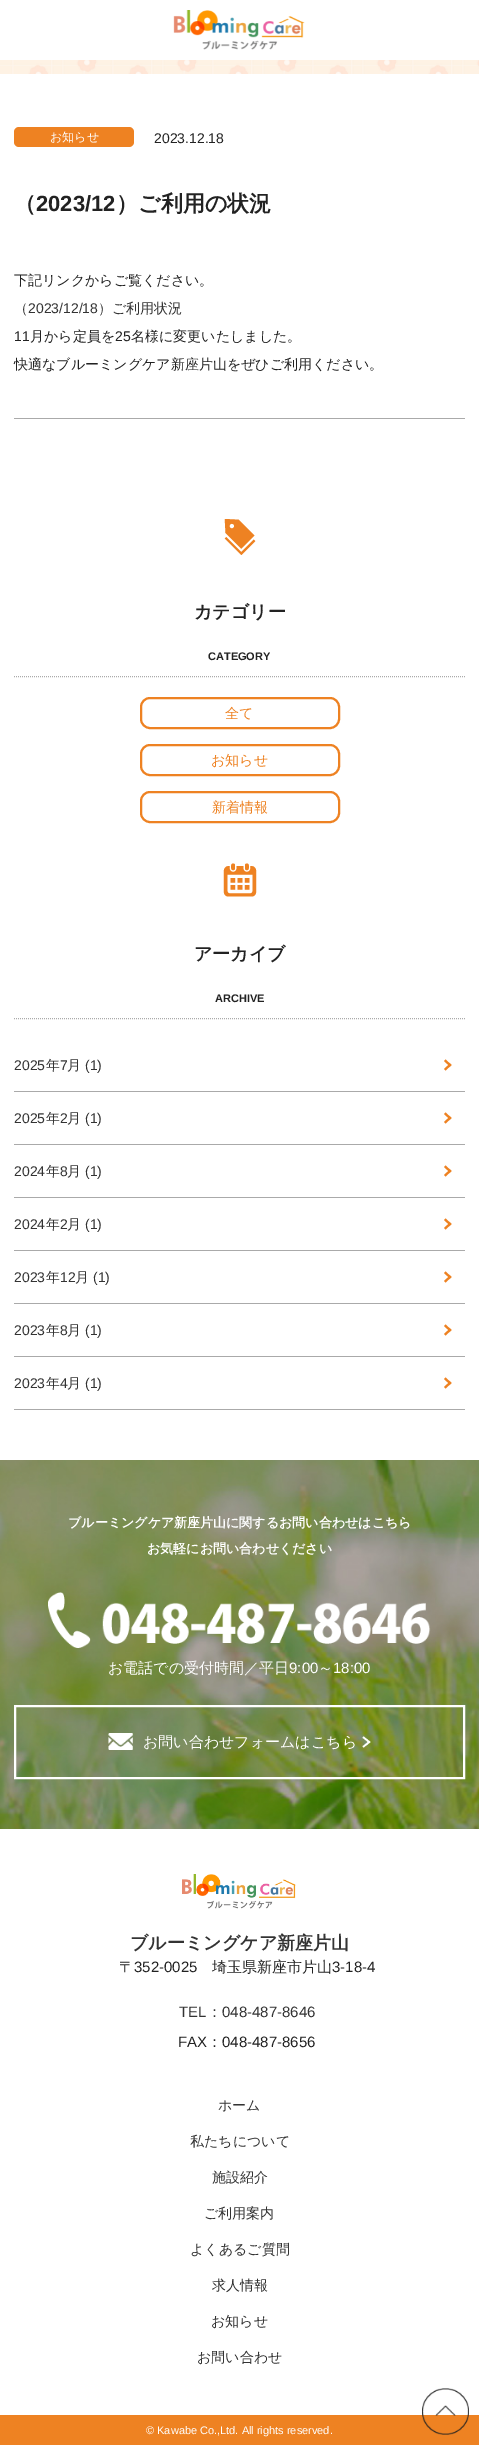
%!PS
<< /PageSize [479 2445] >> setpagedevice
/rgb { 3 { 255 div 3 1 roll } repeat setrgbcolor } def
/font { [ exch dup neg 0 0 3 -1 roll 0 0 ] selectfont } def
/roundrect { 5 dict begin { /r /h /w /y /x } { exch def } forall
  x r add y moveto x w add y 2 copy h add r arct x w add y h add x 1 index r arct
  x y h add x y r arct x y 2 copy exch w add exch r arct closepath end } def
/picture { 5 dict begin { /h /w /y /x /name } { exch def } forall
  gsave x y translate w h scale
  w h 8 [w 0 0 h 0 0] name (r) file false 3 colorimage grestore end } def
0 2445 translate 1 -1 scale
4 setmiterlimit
255 255 255 rgb
0 0 479 2445 rectfill
(img/1.rgb) 173 10 132 40 picture
(img/2.rgb) 0 60 479 14 picture
170 170 170 rgb
14 418 451 1 rectfill
238 130 34 rgb
14 127 120 20 5 roundrect fill
170 170 170 rgb
[1 1] 0 setdash
14 676.5 moveto 465 676.5 lineto stroke
(img/3.rgb) 224 519 32 36 picture
238 130 34 rgb
2 setlinewidth
[] 0 setdash
141 698 198 30 9 roundrect stroke
141 745 198 30 9 roundrect stroke
141 792 198 30 9 roundrect stroke
170 170 170 rgb
1 setlinewidth
[1 1] 0 setdash
14 1018.5 moveto 465 1018.5 lineto stroke
(img/4.rgb) 223 863 34 34 picture
14 1091 451 1 rectfill
238 130 34 rgb
445.5 1059.5 moveto 451.5 1065 lineto 450 1066.5 lineto 444 1061 lineto closepath fill
450 1063.5 moveto 451.5 1065 lineto 445.5 1070.5 lineto 444 1069 lineto closepath fill
170 170 170 rgb
14 1144 451 1 rectfill
238 130 34 rgb
445.5 1112.5 moveto 451.5 1118 lineto 450 1119.5 lineto 444 1114 lineto closepath fill
450 1116.5 moveto 451.5 1118 lineto 445.5 1123.5 lineto 444 1122 lineto closepath fill
170 170 170 rgb
14 1197 451 1 rectfill
238 130 34 rgb
445.5 1165.5 moveto 451.5 1171 lineto 450 1172.5 lineto 444 1167 lineto closepath fill
450 1169.5 moveto 451.5 1171 lineto 445.5 1176.5 lineto 444 1175 lineto closepath fill
170 170 170 rgb
14 1250 451 1 rectfill
238 130 34 rgb
445.5 1218.5 moveto 451.5 1224 lineto 450 1225.5 lineto 444 1220 lineto closepath fill
450 1222.5 moveto 451.5 1224 lineto 445.5 1229.5 lineto 444 1228 lineto closepath fill
170 170 170 rgb
14 1303 451 1 rectfill
238 130 34 rgb
445.5 1271.5 moveto 451.5 1277 lineto 450 1278.5 lineto 444 1273 lineto closepath fill
450 1275.5 moveto 451.5 1277 lineto 445.5 1282.5 lineto 444 1281 lineto closepath fill
170 170 170 rgb
14 1356 451 1 rectfill
238 130 34 rgb
445.5 1324.5 moveto 451.5 1330 lineto 450 1331.5 lineto 444 1326 lineto closepath fill
450 1328.5 moveto 451.5 1330 lineto 445.5 1335.5 lineto 444 1334 lineto closepath fill
170 170 170 rgb
14 1409 451 1 rectfill
238 130 34 rgb
445.5 1377.5 moveto 451.5 1383 lineto 450 1384.5 lineto 444 1379 lineto closepath fill
450 1381.5 moveto 451.5 1383 lineto 445.5 1388.5 lineto 444 1387 lineto closepath fill
(img/5.rgb) 0 1460 479 369 picture
(img/6.rgb) 48 1592 383 56 picture
255 255 255 rgb
2 setlinewidth
[] 0 setdash
15 1706 449 72 rectstroke
(img/7.rgb) 108 1733 263 17 picture
(img/8.rgb) 182 1874 114 35 picture
238 130 34 rgb
0 2415 479 30 rectfill
(img/9.rgb) 422 2388 47 47 picture
/WenQuanYiZenHei-Medium 12 font
255 255 255 rgb
50 141 moveto (お知らせ) show
/LiberationSans-Regular 14 font
34 34 34 rgb
154 143 moveto (2023.12.18) show
/WenQuanYiZenHei-Bold 22 font
14 211 moveto (（) show
/LiberationSans-Bold 22 font
36 211 moveto (2023/12) show
/WenQuanYiZenHei-Bold 22 font
116 211 moveto (）ご利用の状況) show
/WenQuanYiZenHei-Medium 14 font
14 285 moveto (下記リンクからご覧ください。) show
51 51 51 rgb
14 313 moveto (（) show
/LiberationSans-Regular 14 font
28 313 moveto (2023/12/18) show
/WenQuanYiZenHei-Medium 14 font
98 313 moveto (）ご利用状況) show
/LiberationSans-Regular 14 font
34 34 34 rgb
14 341 moveto (11) show
/WenQuanYiZenHei-Medium 14 font
30 341 moveto (月から定員を) show
/LiberationSans-Regular 14 font
115 341 moveto (25) show
/WenQuanYiZenHei-Medium 14 font
131 341 moveto (名様に変更いたしました。) show
14 369 moveto (快適なブルーミングケア新座片山をぜひご利用ください。) show
/WenQuanYiZenHei-Bold 18 font
194 618 moveto (カテゴリー) show
/LiberationSans-Bold 11 font
208 660 moveto (CATEGORY) show
/WenQuanYiZenHei-Medium 14 font
238 130 34 rgb
[
  [(全て) 225 718]
  [(お知らせ) 211 765]
  [(新着情報) 212 812]
] { aload pop moveto show } forall
/WenQuanYiZenHei-Bold 18 font
34 34 34 rgb
194 960 moveto (アーカイブ) show
/LiberationSans-Bold 11 font
215 1002 moveto (ARCHIVE) show
/LiberationSans-Regular 14 font
51 51 51 rgb
14 1070 moveto (2025) show
/WenQuanYiZenHei-Medium 14 font
46 1070 moveto (年) show
/LiberationSans-Regular 14 font
60 1070 moveto (7) show
/WenQuanYiZenHei-Medium 14 font
67 1070 moveto (月) show
/LiberationSans-Regular 14 font
85 1070 moveto (\(1\)) show
14 1123 moveto (2025) show
/WenQuanYiZenHei-Medium 14 font
46 1123 moveto (年) show
/LiberationSans-Regular 14 font
60 1123 moveto (2) show
/WenQuanYiZenHei-Medium 14 font
67 1123 moveto (月) show
/LiberationSans-Regular 14 font
85 1123 moveto (\(1\)) show
14 1176 moveto (2024) show
/WenQuanYiZenHei-Medium 14 font
46 1176 moveto (年) show
/LiberationSans-Regular 14 font
60 1176 moveto (8) show
/WenQuanYiZenHei-Medium 14 font
67 1176 moveto (月) show
/LiberationSans-Regular 14 font
85 1176 moveto (\(1\)) show
14 1229 moveto (2024) show
/WenQuanYiZenHei-Medium 14 font
46 1229 moveto (年) show
/LiberationSans-Regular 14 font
60 1229 moveto (2) show
/WenQuanYiZenHei-Medium 14 font
67 1229 moveto (月) show
/LiberationSans-Regular 14 font
85 1229 moveto (\(1\)) show
14 1282 moveto (2023) show
/WenQuanYiZenHei-Medium 14 font
46 1282 moveto (年) show
/LiberationSans-Regular 14 font
60 1282 moveto (12) show
/WenQuanYiZenHei-Medium 14 font
75 1282 moveto (月) show
/LiberationSans-Regular 14 font
93 1282 moveto (\(1\)) show
14 1335 moveto (2023) show
/WenQuanYiZenHei-Medium 14 font
46 1335 moveto (年) show
/LiberationSans-Regular 14 font
60 1335 moveto (8) show
/WenQuanYiZenHei-Medium 14 font
67 1335 moveto (月) show
/LiberationSans-Regular 14 font
85 1335 moveto (\(1\)) show
14 1388 moveto (2023) show
/WenQuanYiZenHei-Medium 14 font
46 1388 moveto (年) show
/LiberationSans-Regular 14 font
60 1388 moveto (4) show
/WenQuanYiZenHei-Medium 14 font
67 1388 moveto (月) show
/LiberationSans-Regular 14 font
85 1388 moveto (\(1\)) show
/WenQuanYiZenHei-Bold 13 font
255 255 255 rgb
68 1527 moveto (ブルーミングケア新座片山に関するお問い合わせはこちら) show
147 1553 moveto (お気軽にお問い合わせください) show
/WenQuanYiZenHei-Medium 15 font
108 1673 moveto (お電話での受付時間／平日) show
/LiberationSans-Regular 15 font
289 1673 moveto (9:00) show
/WenQuanYiZenHei-Medium 15 font
318 1673 moveto (～) show
/LiberationSans-Regular 15 font
333 1673 moveto (18:00) show
/WenQuanYiZenHei-Medium 15 font
143 1747 moveto (お問い合わせフォームはこちら) show
/WenQuanYiZenHei-Bold 18 font
51 51 51 rgb
130 1949 moveto (ブルーミングケア新座片山) show
/WenQuanYiZenHei-Medium 15 font
34 34 34 rgb
119 1972 moveto (〒) show
/LiberationSans-Regular 15 font
134 1972 moveto (352-0025) show
/WenQuanYiZenHei-Medium 15 font
212 1972 moveto (埼玉県新座市片山) show
/LiberationSans-Regular 15 font
332 1972 moveto (3-18-4) show
51 51 51 rgb
179 2017 moveto (TEL) show
/WenQuanYiZenHei-Medium 15 font
207 2017 moveto (：) show
/LiberationSans-Regular 15 font
222 2017 moveto (048-487-8646) show
34 34 34 rgb
178 2047 moveto (FAX) show
/WenQuanYiZenHei-Medium 15 font
207 2047 moveto (：) show
/LiberationSans-Regular 15 font
222 2047 moveto (048-487-8656) show
/WenQuanYiZenHei-Medium 14 font
51 51 51 rgb
[
  [(ホーム) 218 2110]
  [(私たちについて) 190 2146]
  [(施設紹介) 212 2182]
  [(ご利用案内) 204 2218]
  [(よくあるご質問) 190 2254]
  [(求人情報) 212 2290]
  [(お知らせ) 211 2326]
  [(お問い合わせ) 197 2362]
] { aload pop moveto show } forall
/LiberationSans-Regular 11 font
255 255 255 rgb
146 2434 moveto (© Kawabe Co.,Ltd. All rights reserved.) show
showpage
